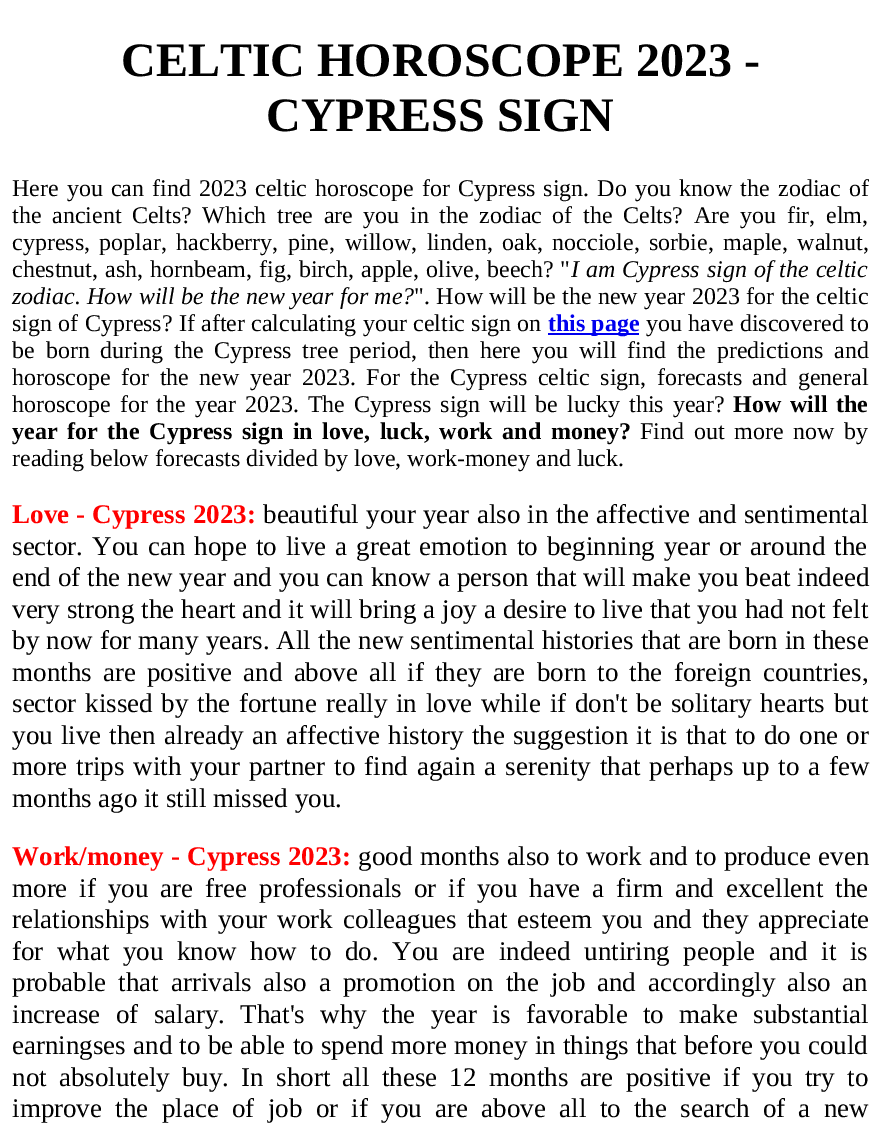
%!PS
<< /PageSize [880 1136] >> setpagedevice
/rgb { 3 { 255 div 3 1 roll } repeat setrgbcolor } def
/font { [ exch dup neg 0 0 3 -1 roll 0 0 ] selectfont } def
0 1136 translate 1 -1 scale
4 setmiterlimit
255 255 255 rgb
0 0 880 1136 rectfill
0 0 238 rgb
548 333 91 2 rectfill
/LiberationSerif-Bold 48 font
0 0 0 rgb
121 76 moveto (CELTIC HOROSCOPE 2023 -) show
266 131 moveto (CYPRESS SIGN) show
/LiberationSerif-Regular 24 font
12 196 moveto 2.1 0 32 (Here you can find 2023 celtic horoscope for Cypress sign. Do you know the zodiac of) widthshow
12 223 moveto 4.6 0 32 (the ancient Celts? Which tree are you in the zodiac of the Celts? Are you fir, elm,) widthshow
12 250 moveto 3.5 0 32 (cypress, poplar, hackberry, pine, willow, linden, oak, nocciole, sorbie, maple, walnut,) widthshow
12 277 moveto 1 0 32 (chestnut, ash, hornbeam, fig, birch, apple, olive, beech? ") widthshow
/LiberationSerif-Italic 24 font
571 277 moveto 1 0 32 (I am Cypress sign of the celtic) widthshow
12 304 moveto 0.4 0 32 (zodiac. How will be the new year for me?) widthshow
/LiberationSerif-Regular 24 font
414 304 moveto 0.4 0 32 (". How will be the new year 2023 for the celtic) widthshow
12 331 moveto 0.25 0 32 (sign of Cypress? If after calculating your celtic sign on) widthshow
/LiberationSerif-Bold 24 font
0 0 238 rgb
548 331 moveto (this page) show
/LiberationSerif-Regular 24 font
0 0 0 rgb
646 331 moveto 0.25 0 32 (you have discovered to) widthshow
12 358 moveto 4.9 0 32 (be born during the Cypress tree period, then here you will find the predictions and) widthshow
12 385 moveto 4.5 0 32 (horoscope for the new year 2023. For the Cypress celtic sign, forecasts and general) widthshow
12 412 moveto 2.9 0 32 (horoscope for the year 2023. The Cypress sign will be lucky this year?) widthshow
/LiberationSerif-Bold 24 font
733 412 moveto 2.9 0 32 (How will the) widthshow
12 439 moveto 3.75 0 32 (year for the Cypress sign in love, luck, work and money?) widthshow
/LiberationSerif-Regular 24 font
640 439 moveto 3.75 0 32 (Find out more now by) widthshow
12 466 moveto (reading below forecasts divided by love, work-money and luck.) show
/LiberationSerif-Bold 27 font
255 0 0 rgb
12 523 moveto 0.5 0 32 (Love - Cypress 2023:) widthshow
/LiberationSerif-Regular 27 font
0 0 0 rgb
263 523 moveto 0.5 0 32 (beautiful your year also in the affective and sentimental) widthshow
12 555 moveto 2.25 0 32 (sector. You can hope to live a great emotion to beginning year or around the) widthshow
12 586 moveto 0.25 0 32 (end of the new year and you can know a person that will make you beat indeed) widthshow
12 618 moveto 0.25 0 32 (very strong the heart and it will bring a joy a desire to live that you had not felt) widthshow
12 649 moveto 0.4 0 32 (by now for many years. All the new sentimental histories that are born in these) widthshow
12 681 moveto 4.4 0 32 (months are positive and above all if they are born to the foreign countries,) widthshow
12 712 moveto 2 0 32 (sector kissed by the fortune really in love while if don't be solitary hearts but) widthshow
12 744 moveto 1.5 0 32 (you live then already an affective history the suggestion it is that to do one or) widthshow
12 775 moveto 2.25 0 32 (more trips with your partner to find again a serenity that perhaps up to a few) widthshow
12 807 moveto (months ago it still missed you.) show
/LiberationSerif-Bold 27 font
255 0 0 rgb
12 865 moveto 0.75 0 32 (Work/money - Cypress 2023:) widthshow
/LiberationSerif-Regular 27 font
0 0 0 rgb
358 865 moveto 0.75 0 32 (good months also to work and to produce even) widthshow
12 897 moveto 5.25 0 32 (more if you are free professionals or if you have a firm and excellent the) widthshow
12 928 moveto 3.25 0 32 (relationships with your work colleagues that esteem you and they appreciate) widthshow
12 960 moveto 6.75 0 32 (for what you know how to do. You are indeed untiring people and it is) widthshow
12 991 moveto 5.1 0 32 (probable that arrivals also a promotion on the job and accordingly also an) widthshow
12 1023 moveto 8.6 0 32 (increase of salary. That's why the year is favorable to make substantial) widthshow
12 1054 moveto 0.5 0 32 (earningses and to be able to spend more money in things that before you could) widthshow
12 1086 moveto 5.5 0 32 (not absolutely buy. In short all these 12 months are positive if you try to) widthshow
12 1117 moveto 6.6 0 32 (improve the place of job or if you are above all to the search of a new) widthshow
showpage
